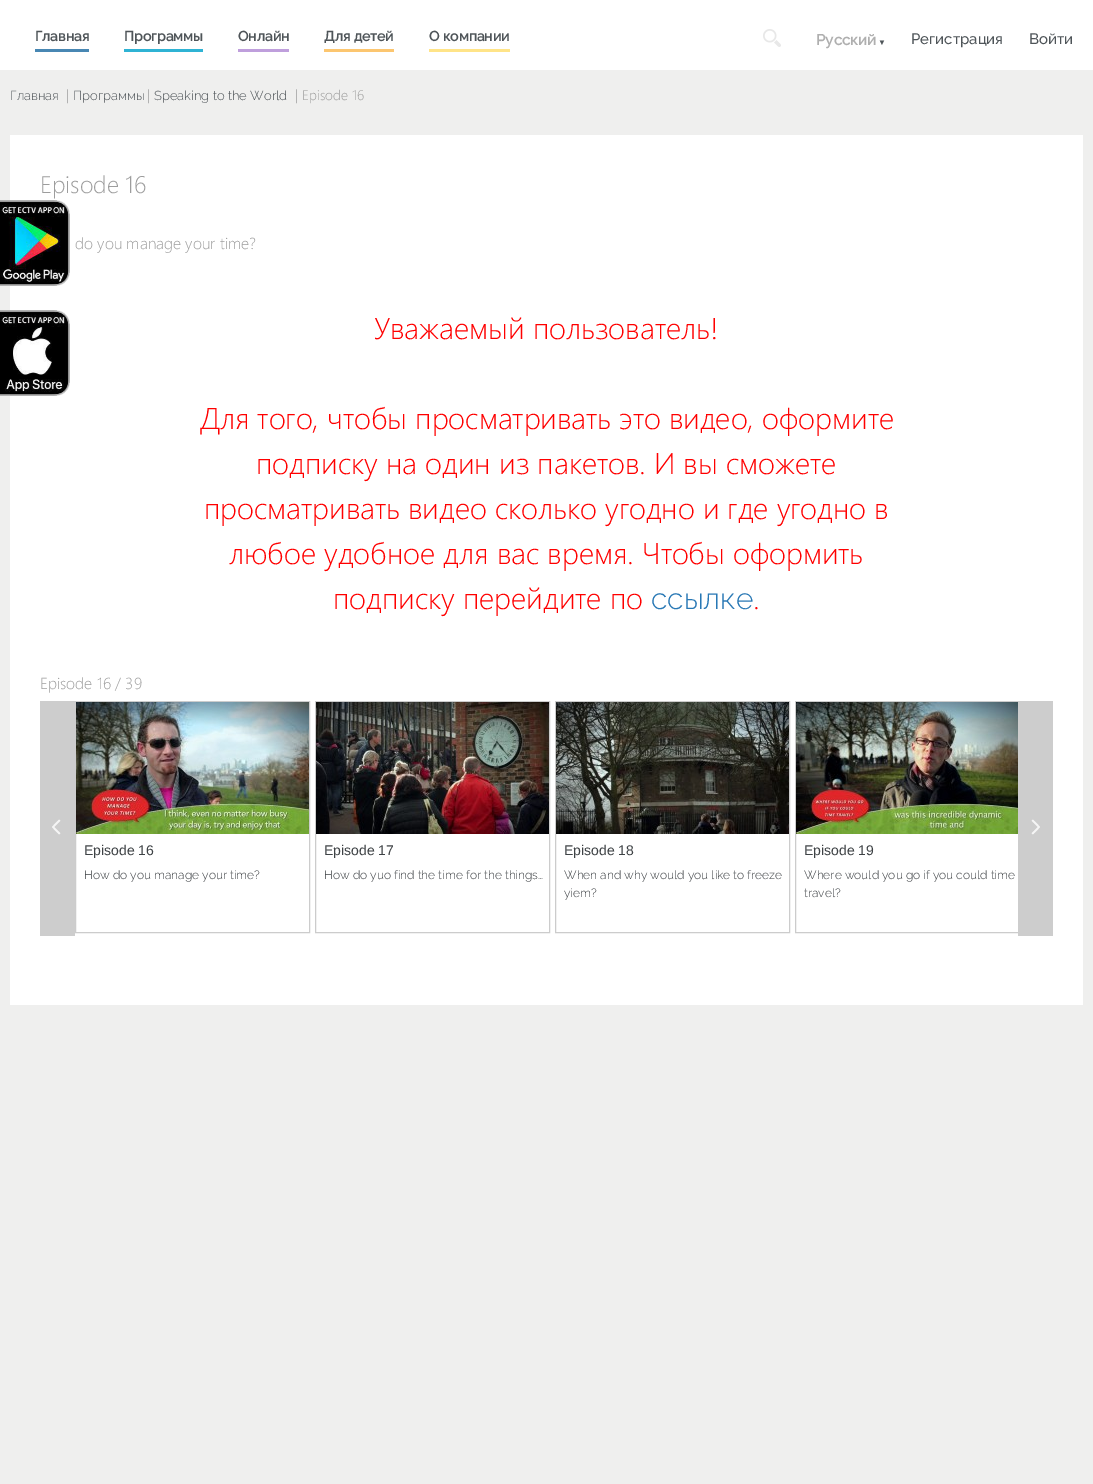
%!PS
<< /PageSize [1093 1484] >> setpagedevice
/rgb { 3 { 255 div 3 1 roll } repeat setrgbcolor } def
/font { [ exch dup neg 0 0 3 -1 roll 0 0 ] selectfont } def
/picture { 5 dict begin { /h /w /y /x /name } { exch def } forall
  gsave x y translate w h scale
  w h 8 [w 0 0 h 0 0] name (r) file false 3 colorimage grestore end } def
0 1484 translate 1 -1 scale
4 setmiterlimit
239 239 238 rgb
0 0 1093 1484 rectfill
[
  [0 0 1093 70 255 255 255]
  [35 49 54 3 72 135 179]
  [124 49 79 3 47 179 212]
  [238 49 51 3 191 159 220]
  [324 49 70 3 252 198 112]
  [429 49 81 3 255 228 136]
] { aload pop rgb rectfill } forall
(img/1.rgb) 763 29 18 18 picture
255 255 255 rgb
10 135 1073 870 rectfill
(img/2.rgb) 0 200 70 86 picture
205 205 205 rgb
40 701 35 235 rectfill
(img/3.rgb) 52 819 9 16 picture
204 204 204 rgb
75.5 701.5 234 231 rectstroke
(img/4.rgb) 76 702 233 132 picture
315.5 701.5 234 231 rectstroke
(img/5.rgb) 316 702 233 132 picture
555.5 701.5 234 231 rectstroke
(img/6.rgb) 556 702 233 132 picture
795.5 701.5 234 231 rectstroke
(img/7.rgb) 796 702 222 132 picture
205 205 205 rgb
1018 701 35 235 rectfill
(img/8.rgb) 1031 819 9 16 picture
(img/9.rgb) 0 310 70 86 picture
/Raleway-Bold 14 font
79 85 89 rgb
[
  [(Главная) 35 41]
  [(Программы) 124 41]
  [(Онлайн) 238 41]
  [(Для детей) 324 41]
  [(О компании) 429 41]
] { aload pop moveto show } forall
/Raleway-Bold 15 font
175 175 175 rgb
816 45 moveto (Русский) show
/LiberationSerif-Regular 8 font
79 85 89 rgb
878 45 moveto (▼) show
/Raleway-Thin 15 font
911 44 moveto (Регистрация) show
1029 44 moveto (Войти) show
/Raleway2-Thin 13 font
10 100 moveto (Главная) show
/SegoeUI-Light 14 font
157 157 157 rgb
66 100 moveto (|) show
/Raleway2-Thin 13 font
79 85 89 rgb
73 100 moveto (Программы) show
/SegoeUI-Light 14 font
157 157 157 rgb
147 100 moveto (|) show
/Raleway2-Thin 13 font
79 85 89 rgb
154 100 moveto (Speaking to the World) show
/SegoeUI-Light 14 font
157 157 157 rgb
295 100 moveto (| Episode 16) show
/SegoeUI-Light 24 font
40 193 moveto (Episode 16) show
/SegoeUI-Light 16 font
75 249 moveto (do you manage your time?) show
/SegoeUI-Light 30 font
255 0 0 rgb
[
  [(Уважаемый пользователь!) 374 339]
  [(Для того, чтобы просматривать это видео, оформите) 200 429]
  [(подписку на один из пакетов. И вы сможете) 256 474]
  [(просматривать видео сколько угодно и где угодно в) 204 519]
  [(любое удобное для вас время. Чтобы оформить) 229 564]
  [(подписку перейдите по) 333 609]
] { aload pop moveto show } forall
/Raleway2-Thin 30 font
40 120 181 rgb
651 609 moveto (ссылке) show
/SegoeUI-Light 30 font
255 0 0 rgb
753 609 moveto (.) show
/SegoeUI-Light 16 font
157 157 157 rgb
40 689 moveto (Episode 16 / 39) show
/LiberationSans-Regular 14 font
62 66 69 rgb
84 855 moveto (Episode 16) show
/Raleway2-Thin 12 font
84 879 moveto (How do you manage your time?) show
/LiberationSans-Regular 14 font
324 855 moveto (Episode 17) show
/Raleway2-Thin 12 font
324 879 moveto (How do yuo find the time for the things…) show
/LiberationSans-Regular 14 font
564 855 moveto (Episode 18) show
/Raleway2-Thin 12 font
564 879 moveto (When and why would you like to freeze) show
564 897 moveto (yiem?) show
/LiberationSans-Regular 14 font
804 855 moveto (Episode 19) show
/Raleway2-Thin 12 font
804 879 moveto (Where would you go if you could time) show
804 897 moveto (travel?) show
showpage
